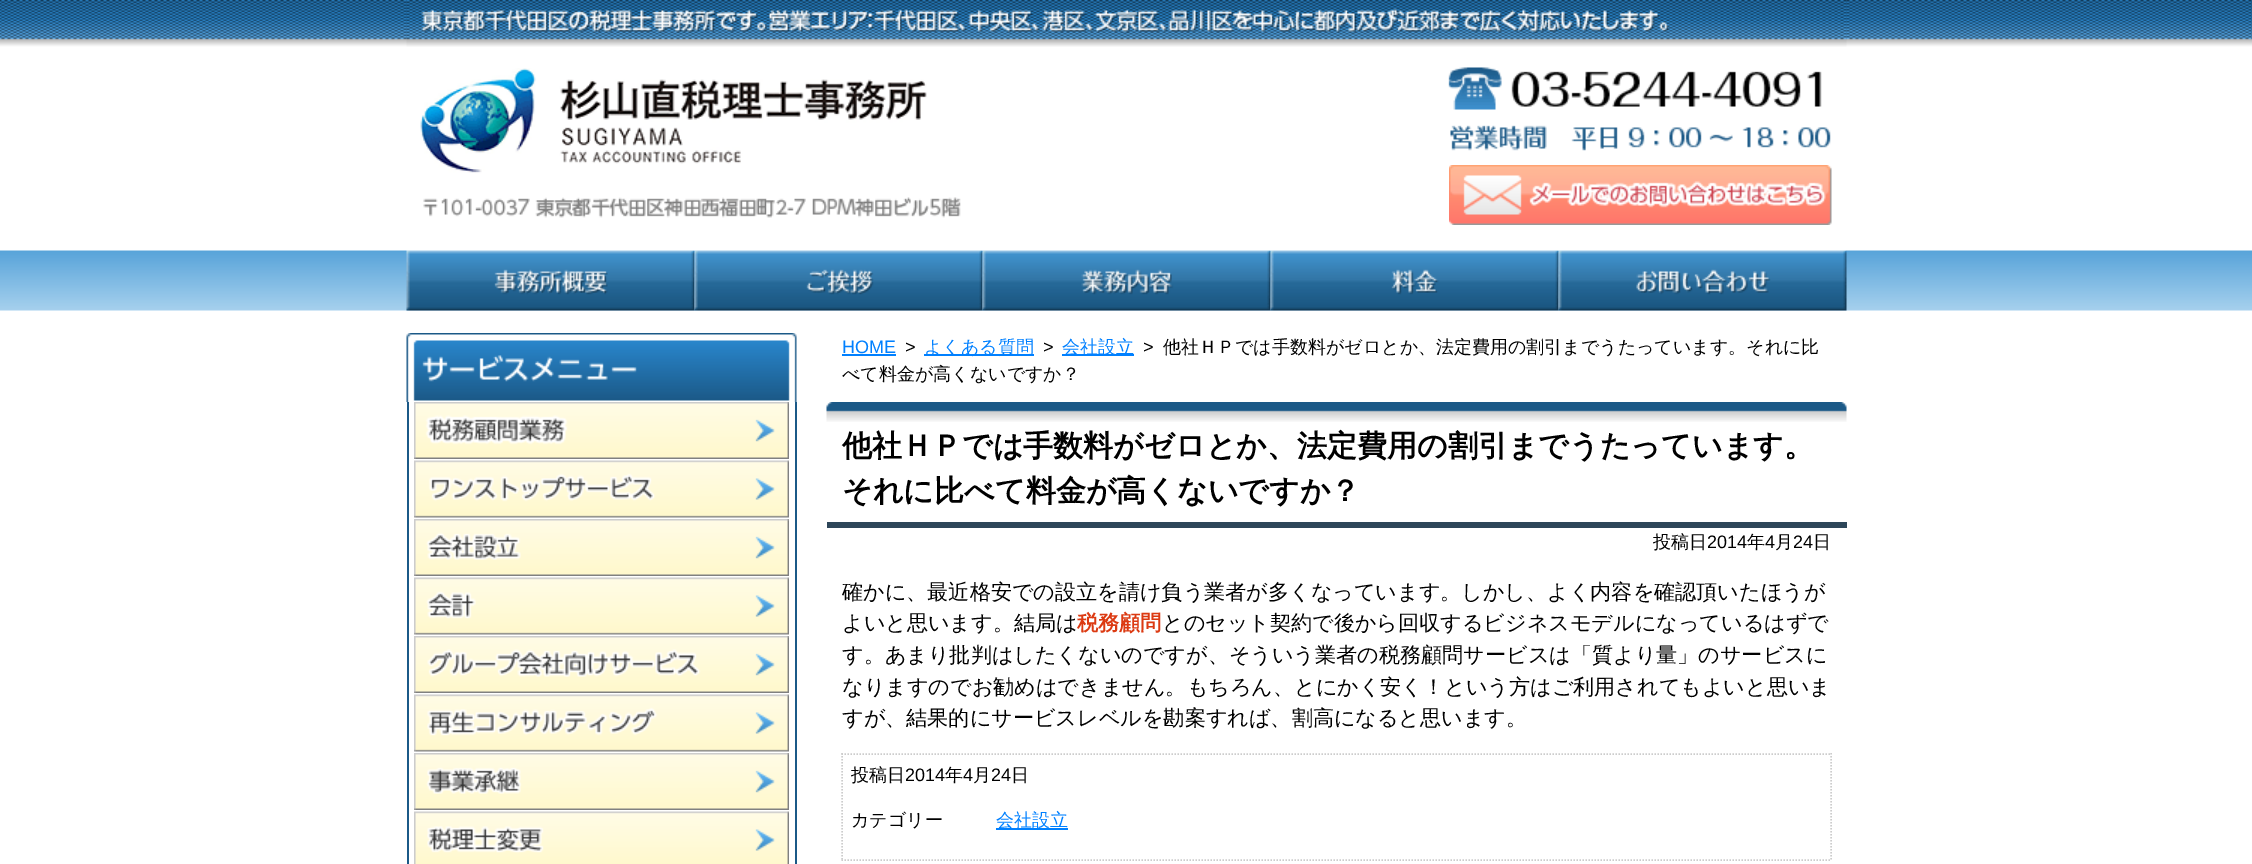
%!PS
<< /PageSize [2252 864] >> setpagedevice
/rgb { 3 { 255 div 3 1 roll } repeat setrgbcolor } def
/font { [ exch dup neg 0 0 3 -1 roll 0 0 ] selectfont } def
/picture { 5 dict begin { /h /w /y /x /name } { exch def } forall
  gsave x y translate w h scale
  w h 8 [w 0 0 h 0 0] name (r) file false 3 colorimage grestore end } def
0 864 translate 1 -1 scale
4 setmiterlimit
255 255 255 rgb
0 0 2252 864 rectfill
(img/1.rgb) 0 0 2252 311 picture
(img/5.rgb) 406 250 289 61 picture
(img/6.rgb) 694 250 289 61 picture
(img/7.rgb) 982 250 289 61 picture
(img/8.rgb) 1270 250 289 61 picture
(img/9.rgb) 1558 250 289 61 picture
(img/2.rgb) 406 0 1441 251 picture
(img/3.rgb) 420 68 541 150 picture
(img/4.rgb) 1449 165 383 60 picture
(img/10.rgb) 406 333 391 69 picture
27 89 135 rgb
795 402 2 462 rectfill
407 402 2 462 rectfill
(img/11.rgb) 414 402 375 57 picture
(img/12.rgb) 414 460 375 58 picture
(img/13.rgb) 414 519 375 57 picture
(img/14.rgb) 414 577 375 58 picture
(img/15.rgb) 414 636 375 57 picture
(img/16.rgb) 414 694 375 58 picture
(img/17.rgb) 414 753 375 57 picture
(img/18.rgb) 414 811 375 53 picture
[
  [842 354 54 2 0 128 255]
  [924 354 110 2 0 128 255]
  [1062 354 72 2 0 128 255]
] { aload pop rgb rectfill } forall
(img/19.rgb) 826 402 1021 20 picture
45 70 89 rgb
827 522 1020 6 rectfill
204 204 204 rgb
1.5 setlinewidth
[1.5 1.5] 0 setdash
841.5 754 moveto 1831.5 754 lineto stroke
1831 753 moveto 1831 861 lineto stroke
841.5 860 moveto 1831.5 860 lineto stroke
842 753 moveto 842 861 lineto stroke
0 128 255 rgb
996 828 72 2 rectfill
/LiberationSans-Regular 18 font
842 353 moveto (HOME) show
0 0 0 rgb
905 353 moveto (>) show
/WenQuanYiZenHei-Medium 18 font
0 128 255 rgb
924 353 moveto (よくある質問) show
/LiberationSans-Regular 18 font
0 0 0 rgb
1043 353 moveto (>) show
/WenQuanYiZenHei-Medium 18 font
0 128 255 rgb
1062 353 moveto (会社設立) show
/LiberationSans-Regular 18 font
0 0 0 rgb
1143 353 moveto (>) show
/WenQuanYiZenHei-Medium 18 font
1163 353 moveto (他社ＨＰでは手数料がゼロとか、法定費用の割引までうたっています。それに比) show
842 380 moveto (べて料金が高くないですか？) show
/WenQuanYiZenHei-Bold 30 font
842 456 moveto (他社ＨＰでは手数料がゼロとか、法定費用の割引までうたっています。) show
842 501 moveto (それに比べて料金が高くないですか？) show
/WenQuanYiZenHei-Medium 18 font
1653 548 moveto (投稿日) show
/LiberationSans-Regular 18 font
1707 548 moveto (2014) show
/WenQuanYiZenHei-Medium 18 font
1747 548 moveto (年) show
/LiberationSans-Regular 18 font
1765 548 moveto (4) show
/WenQuanYiZenHei-Medium 18 font
1775 548 moveto (月) show
/LiberationSans-Regular 18 font
1793 548 moveto (24) show
/WenQuanYiZenHei-Medium 18 font
1813 548 moveto (日) show
/WenQuanYiZenHei-Medium 21.1 font
842 599 moveto (確かに、最近格安での設立を請け負う業者が多くなっています。しかし、よく内容を確認頂いたほうが) show
842 630 moveto (よいと思います。結局は) show
/WenQuanYiZenHei-Bold 21.1 font
220 58 18 rgb
1077 630 moveto (税務顧問) show
/WenQuanYiZenHei-Medium 21.1 font
0 0 0 rgb
[
  [(とのセット契約で後から回収するビジネスモデルになっているはずで) 1162 630]
  [(す。あまり批判はしたくないのですが、そういう業者の税務顧問サービスは「質より量」のサービスに) 842 662]
  [(なりますのでお勧めはできません。もちろん、とにかく安く！という方はご利用されてもよいと思いま) 842 694]
  [(すが、結果的にサービスレベルを勘案すれば、割高になると思います。) 842 725]
] { aload pop moveto show } forall
/WenQuanYiZenHei-Medium 18 font
851 781 moveto (投稿日) show
/LiberationSans-Regular 18 font
905 781 moveto (2014) show
/WenQuanYiZenHei-Medium 18 font
945 781 moveto (年) show
/LiberationSans-Regular 18 font
963 781 moveto (4) show
/WenQuanYiZenHei-Medium 18 font
973 781 moveto (月) show
/LiberationSans-Regular 18 font
991 781 moveto (24) show
/WenQuanYiZenHei-Medium 18 font
1011 781 moveto (日) show
851 826 moveto (カテゴリー) show
0 128 255 rgb
996 826 moveto (会社設立) show
showpage
